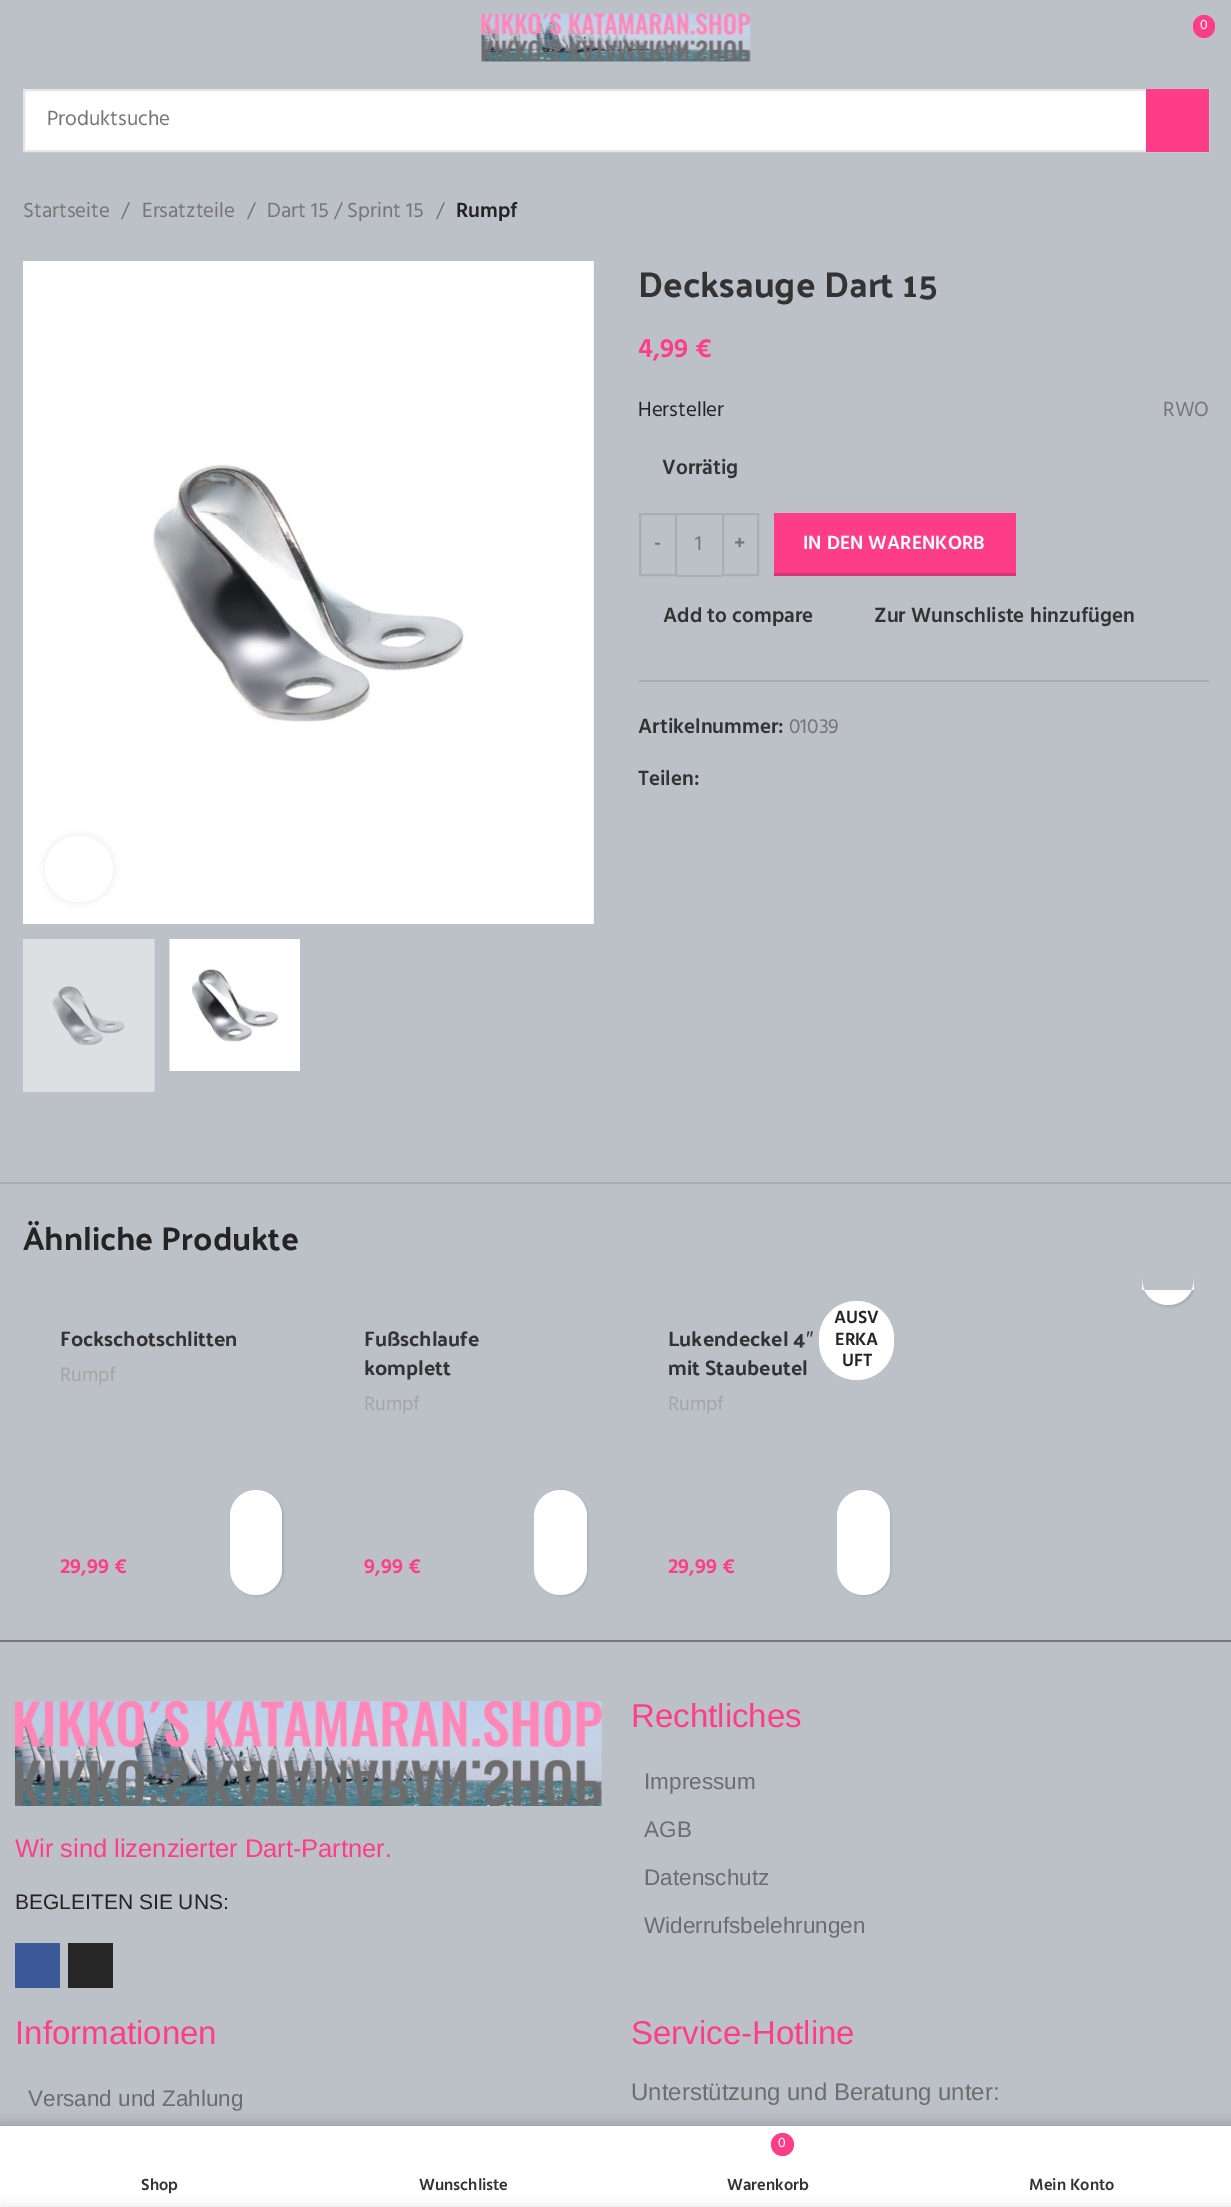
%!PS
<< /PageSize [1231 2207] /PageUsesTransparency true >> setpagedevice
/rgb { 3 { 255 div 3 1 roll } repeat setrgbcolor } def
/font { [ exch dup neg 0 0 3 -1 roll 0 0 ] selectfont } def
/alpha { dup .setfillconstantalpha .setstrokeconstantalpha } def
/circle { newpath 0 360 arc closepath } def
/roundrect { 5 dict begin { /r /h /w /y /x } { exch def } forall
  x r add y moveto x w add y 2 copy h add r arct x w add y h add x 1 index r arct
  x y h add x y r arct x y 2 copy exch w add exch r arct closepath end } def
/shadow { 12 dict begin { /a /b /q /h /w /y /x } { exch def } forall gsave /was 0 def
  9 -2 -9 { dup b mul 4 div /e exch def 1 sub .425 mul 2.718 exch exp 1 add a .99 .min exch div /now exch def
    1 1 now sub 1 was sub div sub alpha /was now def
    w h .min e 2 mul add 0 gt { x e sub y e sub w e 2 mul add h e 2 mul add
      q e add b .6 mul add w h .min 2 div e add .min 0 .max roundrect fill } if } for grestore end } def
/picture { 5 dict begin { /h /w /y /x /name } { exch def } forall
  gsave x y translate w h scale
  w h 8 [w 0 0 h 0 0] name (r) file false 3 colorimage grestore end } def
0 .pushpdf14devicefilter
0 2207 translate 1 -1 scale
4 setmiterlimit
188 193 199 rgb
0 0 1231 2207 rectfill
(img/1.rgb) 481 13 270 49 picture
253 61 136 rgb
1193 15 22 23 11 roundrect fill
255 255 255 rgb
25 91 1121 59 rectfill
230 230 230 rgb
2 setlinewidth
24 90 1184 61 rectstroke
253 61 136 rgb
1146 89 63 63 rectfill
(img/2.rgb) 23 261 571 663 picture
0 0 0 rgb
45 836 68 66 33 4 0.08 shadow
255 255 255 rgb
45 836 68 66 33 roundrect fill
(img/3.rgb) 23 939 132 153 picture
(img/4.rgb) 169 939 131 132 picture
169 174 179 rgb
640 514 36 61 rectstroke
677 513 45 2 rectfill
677 575 45 2 rectfill
723 514 35 61 rectstroke
[
  [774 513 242 60 254 61 137]
  [774 573 242 3 216 52 116]
  [639 680 570 2 168 173 178]
  [0 1182 1231 2 168 173 178]
] { aload pop rgb rectfill } forall
gsave
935 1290 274 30 rectclip
0 0 0 rgb
1143 1202 53 105 26.5 1 0.1 shadow
grestore
255 255 255 rgb
1142 1290 moveto 1194 1290 lineto 1194 1279 lineto 1194 1293.5 1182.5 1305 1168 1305 curveto 1153.5 1305 1142 1293.5 1142 1279 curveto closepath fill
0 0 0 rgb
231 1491 53 105 26.5 1 0.1 shadow
255 255 255 rgb
230 1490 52 105 26 roundrect fill
0 0 0 rgb
536 1491 52 105 26 1 0.1 shadow
255 255 255 rgb
534 1490 53 105 26.5 roundrect fill
819 1301 75 79 37.5 roundrect fill
0 0 0 rgb
839 1491 52 105 26 1 0.1 shadow
255 255 255 rgb
837 1490 53 105 26.5 roundrect fill
119 119 119 rgb
0 1640 1231 2 rectfill
(img/5.rgb) 15 1701 587 105 picture
59 89 152 rgb
15 1943 45 45 rectfill
38 38 38 rgb
68 1943 45 45 rectfill
0 0 0 rgb
0 2126 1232 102 0 7 0.12 shadow
0 2126 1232 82 0 7 0.12 shadow
255 255 255 rgb
0 2126 1231 81 rectfill
253 61 136 rgb
782.5 2144.5 11.5 circle fill
0 0 0 rgb
0 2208 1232 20 0 7 0.14 shadow
/Hind-Regular 14 font
255 255 255 rgb
1200 29 moveto (0) show
/Hind-Regular 21 font
118 118 118 rgb
[
  [(Produktsuche) 47 125]
  [(Startseite) 23 217]
  [(/) 121 217]
  [(Ersatzteile) 142 217]
  [(/) 247 217]
  [(Dart 15 / Sprint 15) 267 217]
  [(/) 436 217]
] { aload pop moveto show } forall
/Hind-SemiBold 21 font
36 36 36 rgb
456 217 moveto (Rumpf) show
/PalanquinDark-Regular 36 font
51 51 51 rgb
638 297 moveto (Decksauge Dart 15) show
/Hind-SemiBold 27 font
253 61 136 rgb
638 357 moveto (4,99 €) show
/Hind-Regular 21 font
36 36 36 rgb
638 416 moveto (Hersteller) show
118 118 118 rgb
1163 416 moveto (RWO) show
/Hind-SemiBold 21 font
51 51 51 rgb
662 474 moveto (Vorrätig) show
/Hind-SemiBold 19.5 font
118 118 118 rgb
654 549 moveto (-) show
/Hind-Regular 21 font
695 550 moveto (1) show
/Hind-SemiBold 19.5 font
734 549 moveto (+) show
255 255 255 rgb
803 549 moveto (IN DEN WARENKORB) show
/Hind-SemiBold 21 font
51 51 51 rgb
[
  [(Add to compare) 663 622]
  [(Zur Wunschliste hinzufügen) 874 622]
  [(Artikelnummer:) 638 733]
] { aload pop moveto show } forall
/Hind-Regular 21 font
118 118 118 rgb
789 733 moveto (01039) show
/Hind-SemiBold 21 font
51 51 51 rgb
638 785 moveto (Teilen:) show
/PalanquinDark-Regular 33 font
36 36 36 rgb
23 1250 moveto (Ähnliche Produkte) show
/PalanquinDark-Regular 21 font
51 51 51 rgb
60 1346 moveto (Fockschotschlitten) show
/Hind-Regular 20 font
165 165 165 rgb
60 1381 moveto (Rumpf) show
/Hind-SemiBold 21 font
253 61 136 rgb
60 1573 moveto (29,99 €) show
/PalanquinDark-Regular 21 font
51 51 51 rgb
364 1346 moveto (Fußschlaufe) show
364 1375 moveto (komplett) show
/Hind-Regular 20 font
165 165 165 rgb
364 1410 moveto (Rumpf) show
/Hind-SemiBold 21 font
253 61 136 rgb
364 1573 moveto (9,99 €) show
/PalanquinDark-Regular 21 font
51 51 51 rgb
668 1346 moveto (Lukendeckel 4) show
/LiberationSans-Regular 21 font
806 1346 moveto (″) show
/PalanquinDark-Regular 21 font
668 1375 moveto (mit Staubeutel) show
/Hind-Regular 20 font
165 165 165 rgb
668 1410 moveto (Rumpf) show
/Hind-SemiBold 18 font
36 36 36 rgb
[
  [(AUSV) 834 1323]
  [(ERKA) 835 1345]
  [(UFT) 842 1366]
] { aload pop moveto show } forall
/Hind-SemiBold 21 font
253 61 136 rgb
668 1573 moveto (29,99 €) show
/LiberationSans-Regular 25.5 font
15 1857 moveto (Wir sind lizenzierter Dart-Partner.) show
/LiberationSans-Regular 21 font
36 36 36 rgb
15 1909 moveto (BEGLEITEN SIE UNS:) show
/LiberationSans-Regular 33 font
253 61 136 rgb
631 1727 moveto (Rechtliches) show
/LiberationSans-Regular 22.5 font
109 109 109 rgb
[
  [(Impressum) 644 1789]
  [(AGB) 644 1837]
  [(Datenschutz) 644 1885]
  [(Widerrufsbelehrungen) 644 1933]
] { aload pop moveto show } forall
/LiberationSans-Regular 33 font
253 61 136 rgb
15 2044 moveto (Informationen) show
/LiberationSans-Regular 22.5 font
109 109 109 rgb
28 2106 moveto (Versand und Zahlung) show
/LiberationSans-Regular 33 font
253 61 136 rgb
631 2044 moveto (Service-Hotline) show
/LiberationSans-Regular 24 font
109 109 109 rgb
631 2100 moveto (Unterstützung und Beratung unter:) show
/Hind-SemiBold 16.5 font
51 51 51 rgb
141 2190 moveto (Shop) show
419 2190 moveto (Wunschliste) show
/Hind-Regular 14 font
255 255 255 rgb
778 2147 moveto (0) show
/Hind-SemiBold 16.5 font
51 51 51 rgb
727 2190 moveto (Warenkorb) show
1029 2190 moveto (Mein Konto) show
.poppdf14devicefilter showpage
